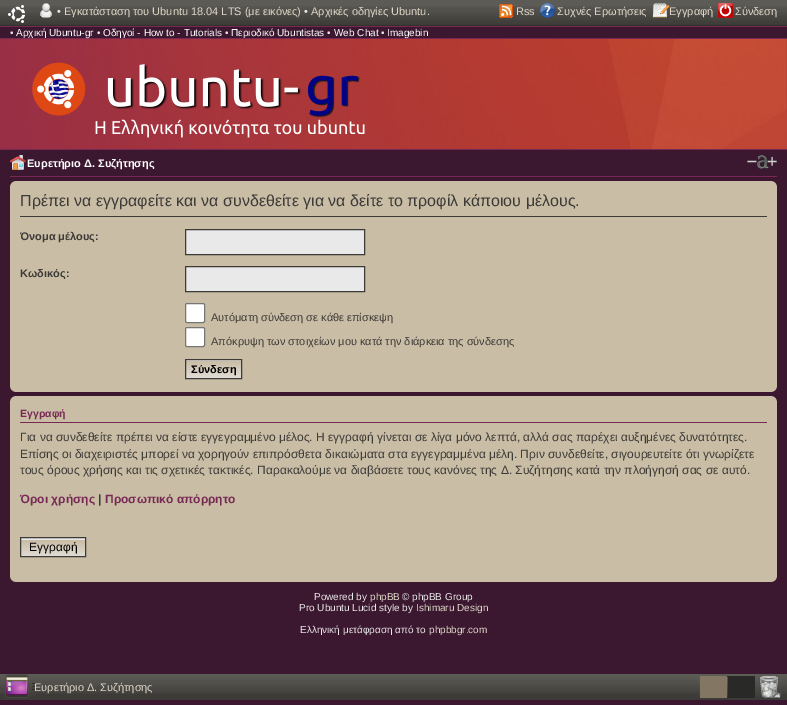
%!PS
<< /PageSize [787 705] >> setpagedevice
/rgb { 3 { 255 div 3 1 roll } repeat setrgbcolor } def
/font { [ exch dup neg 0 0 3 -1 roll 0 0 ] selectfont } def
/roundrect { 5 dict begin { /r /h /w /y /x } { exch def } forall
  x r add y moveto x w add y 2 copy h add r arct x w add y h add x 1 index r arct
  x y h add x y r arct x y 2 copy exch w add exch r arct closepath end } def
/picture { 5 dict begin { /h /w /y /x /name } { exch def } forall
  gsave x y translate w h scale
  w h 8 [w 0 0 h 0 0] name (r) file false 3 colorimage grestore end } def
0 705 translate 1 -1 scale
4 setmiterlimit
59 24 48 rgb
0 0 787 705 rectfill
92 91 86 rgb
0 0 787 6 rectfill
(img/1.rgb) 0 6 787 20 picture
(img/2.rgb) 8 5 18 18 picture
(img/3.rgb) 40 3 12 15 picture
(img/4.rgb) 499 4 14 14 picture
(img/5.rgb) 540 3 15 15 picture
(img/6.rgb) 652 3 18 15 picture
(img/7.rgb) 718 3 15 15 picture
119 41 83 rgb
0 26 787 1 rectfill
0 38 787 1 rectfill
(img/8.rgb) 0 39 787 110 picture
(img/9.rgb) 32 62 333 76 picture
0 149 787 1 rectfill
10 176 767 1 rectfill
(img/10.rgb) 10 155 16 15 picture
(img/11.rgb) 747 155 30 14 picture
202 189 166 rgb
10 181 767 211 rectfill
(img/12.rgb) 10 181 5 5 picture
(img/13.rgb) 772 181 5 5 picture
60 59 55 rgb
20 216 747 1 rectfill
233 233 233 rgb
185.5 229.5 moveto 364.5 229.5 lineto 364.5 254.5 lineto 185.5 254.5 lineto closepath gsave fill grestore
60 59 55 rgb
stroke
233 233 233 rgb
185.5 266.5 moveto 364.5 266.5 lineto 364.5 291.5 lineto 185.5 291.5 lineto closepath gsave fill grestore
60 59 55 rgb
stroke
255 255 255 rgb
185.5 303.5 19 19 1.5 roundrect gsave fill grestore
118 118 118 rgb
stroke
255 255 255 rgb
185.5 327.5 19 19 1.5 roundrect gsave fill grestore
118 118 118 rgb
stroke
233 233 233 rgb
186 360 55 1 rectfill
(img/14.rgb) 186 361 55 17 picture
60 59 55 rgb
185.5 359.5 56 19 rectstroke
(img/15.rgb) 10 387 5 5 picture
(img/16.rgb) 772 387 5 5 picture
202 189 166 rgb
10 396 767 186 rectfill
(img/12.rgb) 10 396 5 5 picture
(img/13.rgb) 772 396 5 5 picture
119 41 83 rgb
20 422 747 1 rectfill
(img/17.rgb) 21 540 64 16 picture
233 233 233 rgb
21 538 64 2 rectfill
60 59 55 rgb
20.5 537.5 65 19 rectstroke
(img/15.rgb) 10 577 5 5 picture
(img/16.rgb) 772 577 5 5 picture
0 694 787 6 rectfill
(img/18.rgb) 0 674 787 20 picture
(img/19.rgb) 698 676 84 22 picture
(img/20.rgb) 5 674 31 24 picture
/LiberationSans-Regular 11 font
233 233 233 rgb
57 15 moveto (•) show
223 216 200 rgb
64 15 moveto (Εγκατάσταση του Ubuntu 18.04 LTS \(με εικόνες\)) show
233 233 233 rgb
304 15 moveto (•) show
223 216 200 rgb
[
  [(Αρχικές οδηγίες Ubuntu.) 311 15]
  [(Rss) 516 15]
  [(Συχνές Ερωτήσεις) 557 15]
  [(Εγγραφή) 669 15]
  [(Σύνδεση) 735 15]
] { aload pop moveto show } forall
/LiberationSans-Regular 10 font
233 233 233 rgb
10 36 moveto (•) show
255 255 255 rgb
16 36 moveto (Αρχική Ubuntu-gr) show
233 233 233 rgb
97 36 moveto (•) show
255 255 255 rgb
103 36 moveto (Οδηγοί - How to - Tutorials) show
233 233 233 rgb
225 36 moveto (•) show
255 255 255 rgb
231 36 moveto (Περιοδικό Ubuntistas) show
233 233 233 rgb
327 36 moveto (•) show
255 255 255 rgb
334 36 moveto (Web Chat) show
233 233 233 rgb
381 36 moveto (•) show
255 255 255 rgb
387 36 moveto (Imagebin) show
/LiberationSans-Bold 11 font
27 167 moveto (Ευρετήριο Δ. Συζήτησης) show
/LiberationSans-Regular 16 font
60 59 55 rgb
20 206 moveto (Πρέπει να εγγραφείτε και να συνδεθείτε για να δείτε το προφίλ κάποιου μέλους.) show
/LiberationSans-Bold 11 font
20 240 moveto (Όνομα μέλους:) show
20 277 moveto (Κωδικός:) show
/LiberationSans-Regular 11 font
211 321 moveto (Αυτόματη σύνδεση σε κάθε επίσκεψη) show
211 345 moveto (Απόκρυψη των στοιχείων μου κατά την διάρκεια της σύνδεσης) show
/LiberationSans-Bold 11 font
0 0 0 rgb
191 373 moveto (Σύνδεση) show
/LiberationSans-Bold 10.5 font
119 41 83 rgb
20 417 moveto (Εγγραφή) show
/LiberationSans-Regular 12 font
60 59 55 rgb
[
  [(Για να συνδεθείτε πρέπει να είστε εγγεγραμμένο μέλος. Η εγγραφή γίνεται σε λίγα μόνο λεπτά, αλλά σας παρέχει αυξημένες δυνατότητες.) 20 441]
  [(Επίσης οι διαχειριστές μπορεί να χορηγούν επιπρόσθετα δικαιώματα στα εγγεγραμμένα μέλη. Πριν συνδεθείτε, σιγουρευτείτε ότι γνωρίζετε) 20 458]
  [(τους όρους χρήσης και τις σχετικές τακτικές. Παρακαλούμε να διαβάσετε τους κανόνες της Δ. Συζήτησης κατά την πλοήγησή σας σε αυτό.) 20 474]
] { aload pop moveto show } forall
/LiberationSans-Bold 12 font
119 41 83 rgb
20 503 moveto (Όροι χρήσης) show
60 59 55 rgb
98 503 moveto (|) show
119 41 83 rgb
105 503 moveto (Προσωπικό απόρρητο) show
/LiberationSans-Regular 12 font
0 0 0 rgb
29 551 moveto (Εγγραφή) show
/LiberationSans-Regular 10 font
233 233 233 rgb
314 600 moveto (Powered by) show
223 216 200 rgb
370 600 moveto (phpBB) show
233 233 233 rgb
402 600 moveto (© phpBB Group) show
299 611 moveto (Pro Ubuntu Lucid style by) show
223 216 200 rgb
416 611 moveto (Ishimaru Design) show
233 233 233 rgb
300 633 moveto (Ελληνική μετάφραση από το) show
223 216 200 rgb
429 633 moveto (phpbbgr.com) show
/LiberationSans-Regular 11 font
34 691 moveto (Ευρετήριο Δ. Συζήτησης) show
showpage
